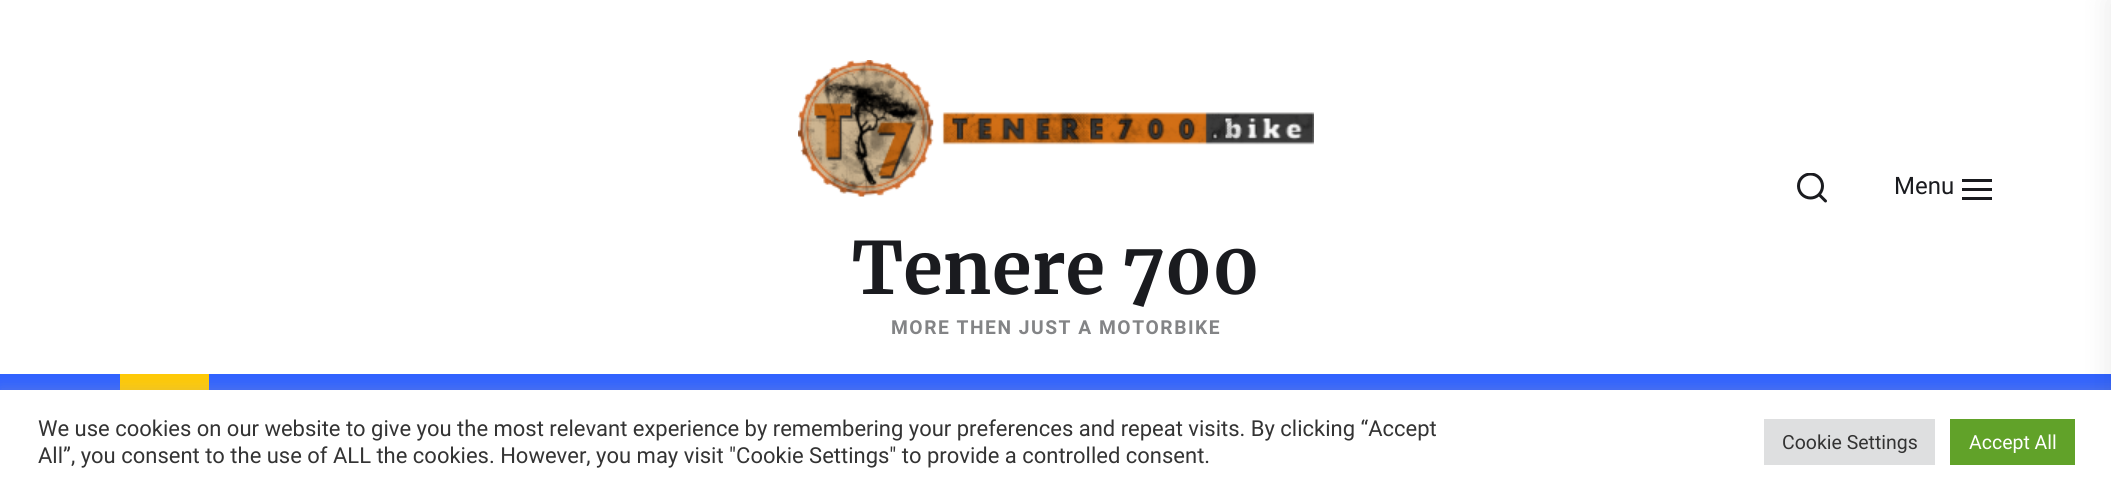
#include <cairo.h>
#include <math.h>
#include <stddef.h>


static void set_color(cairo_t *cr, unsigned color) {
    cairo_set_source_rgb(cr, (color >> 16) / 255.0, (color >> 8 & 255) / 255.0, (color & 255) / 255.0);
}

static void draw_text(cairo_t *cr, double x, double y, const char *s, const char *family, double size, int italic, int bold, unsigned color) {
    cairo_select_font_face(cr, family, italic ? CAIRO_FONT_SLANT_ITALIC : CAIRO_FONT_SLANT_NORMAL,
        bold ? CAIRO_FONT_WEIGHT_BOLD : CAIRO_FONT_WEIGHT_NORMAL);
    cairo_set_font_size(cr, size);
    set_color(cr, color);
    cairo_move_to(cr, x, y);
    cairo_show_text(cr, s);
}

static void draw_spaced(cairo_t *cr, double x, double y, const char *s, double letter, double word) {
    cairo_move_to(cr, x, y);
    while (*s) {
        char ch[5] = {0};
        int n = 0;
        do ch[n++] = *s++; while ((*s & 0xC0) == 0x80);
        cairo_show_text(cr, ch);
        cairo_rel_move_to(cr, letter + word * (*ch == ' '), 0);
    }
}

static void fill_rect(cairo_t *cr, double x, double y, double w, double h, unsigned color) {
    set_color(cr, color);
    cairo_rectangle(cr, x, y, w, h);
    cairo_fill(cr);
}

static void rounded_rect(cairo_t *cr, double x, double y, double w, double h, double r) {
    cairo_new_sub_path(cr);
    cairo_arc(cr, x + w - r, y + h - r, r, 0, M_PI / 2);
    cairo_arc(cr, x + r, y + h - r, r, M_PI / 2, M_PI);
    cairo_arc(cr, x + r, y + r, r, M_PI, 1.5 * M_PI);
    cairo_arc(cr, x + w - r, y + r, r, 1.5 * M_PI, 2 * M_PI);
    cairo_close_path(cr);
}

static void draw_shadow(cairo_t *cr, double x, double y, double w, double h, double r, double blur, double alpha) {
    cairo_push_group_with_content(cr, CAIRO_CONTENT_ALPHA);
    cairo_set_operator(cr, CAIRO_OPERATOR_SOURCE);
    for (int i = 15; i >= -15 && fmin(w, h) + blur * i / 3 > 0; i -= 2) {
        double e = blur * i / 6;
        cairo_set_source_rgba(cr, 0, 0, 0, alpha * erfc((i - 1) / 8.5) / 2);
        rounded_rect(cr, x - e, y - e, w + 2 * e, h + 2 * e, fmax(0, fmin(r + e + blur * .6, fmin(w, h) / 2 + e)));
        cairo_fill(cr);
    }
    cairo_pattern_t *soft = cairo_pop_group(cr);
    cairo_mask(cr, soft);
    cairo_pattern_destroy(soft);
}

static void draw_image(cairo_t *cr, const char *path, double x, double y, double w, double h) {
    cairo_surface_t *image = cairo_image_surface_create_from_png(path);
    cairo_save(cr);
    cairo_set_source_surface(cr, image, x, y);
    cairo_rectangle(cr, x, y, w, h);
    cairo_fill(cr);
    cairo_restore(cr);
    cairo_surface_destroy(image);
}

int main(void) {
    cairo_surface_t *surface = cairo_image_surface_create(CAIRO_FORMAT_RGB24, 2111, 493);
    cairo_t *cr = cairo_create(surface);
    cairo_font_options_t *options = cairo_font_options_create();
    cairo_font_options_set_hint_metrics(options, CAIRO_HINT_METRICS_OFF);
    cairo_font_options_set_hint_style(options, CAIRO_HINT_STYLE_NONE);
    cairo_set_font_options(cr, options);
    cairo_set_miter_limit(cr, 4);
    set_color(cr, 0xFFFFFF);
    cairo_paint(cr);
    draw_image(cr, "assets/img1.png", 1797, 173, 30, 30);
    draw_text(cr, 1894, 194, "Menu", "Roboto", 24, 0, 0, 0x1A1B1F);
    fill_rect(cr, 1962, 179, 30, 3, 0x1A1B1F);
    fill_rect(cr, 1962, 188, 30, 3, 0x1A1B1F);
    fill_rect(cr, 1962, 197, 30, 3, 0x1A1B1F);
    draw_image(cr, "assets/img2.png", 798, 60, 516, 137);
    draw_text(cr, 852, 294, "Tenere 700", "Merriweather", 72, 0, 1, 0x1A1B1F);
    cairo_select_font_face(cr, "Roboto", CAIRO_FONT_SLANT_NORMAL, CAIRO_FONT_WEIGHT_BOLD);
    cairo_set_font_size(cr, 19.25);
    set_color(cr, 0x838486);
    draw_spaced(cr, 891, 334, "MORE THEN JUST A MOTORBIKE", 1.5, 0);
    fill_rect(cr, 0, 374, 2111, 16, 0x3062FF);
    fill_rect(cr, 120, 374, 89, 16, 0xFFCA05);
    set_color(cr, 0x000000);
    draw_shadow(cr, 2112, 0, 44, 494, 0, 15, 0.1);
    set_color(cr, 0xACABAB);
    draw_shadow(cr, 0, 389, 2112, 103, 0, 7.5, 0.3);
    fill_rect(cr, 0, 390, 2111, 103, 0xFFFFFF);
    draw_text(cr, 38, 436, "We use cookies on our website to give you the most relevant experience by remembering your preferences and repeat visits. By clicking “Accept", "Roboto", 22, 0, 0, 0x333333);
    draw_text(cr, 38, 463, "All”, you consent to the use of ALL the cookies. However, you may visit \"Cookie Settings\" to provide a controlled consent.", "Roboto", 22, 0, 0, 0x333333);
    fill_rect(cr, 1764, 419, 171, 46, 0xDEDFE0);
    draw_text(cr, 1782, 449, "Cookie Settings", "Roboto", 19.5, 0, 0, 0x333333);
    fill_rect(cr, 1950, 419, 125, 46, 0x61A229);
    draw_text(cr, 1969, 449, "Accept All", "Roboto", 19.5, 0, 0, 0xFFFFFF);
    cairo_surface_write_to_png(surface, "output.png");
    cairo_font_options_destroy(options);
    cairo_destroy(cr);
    cairo_surface_destroy(surface);
    return 0;
}
